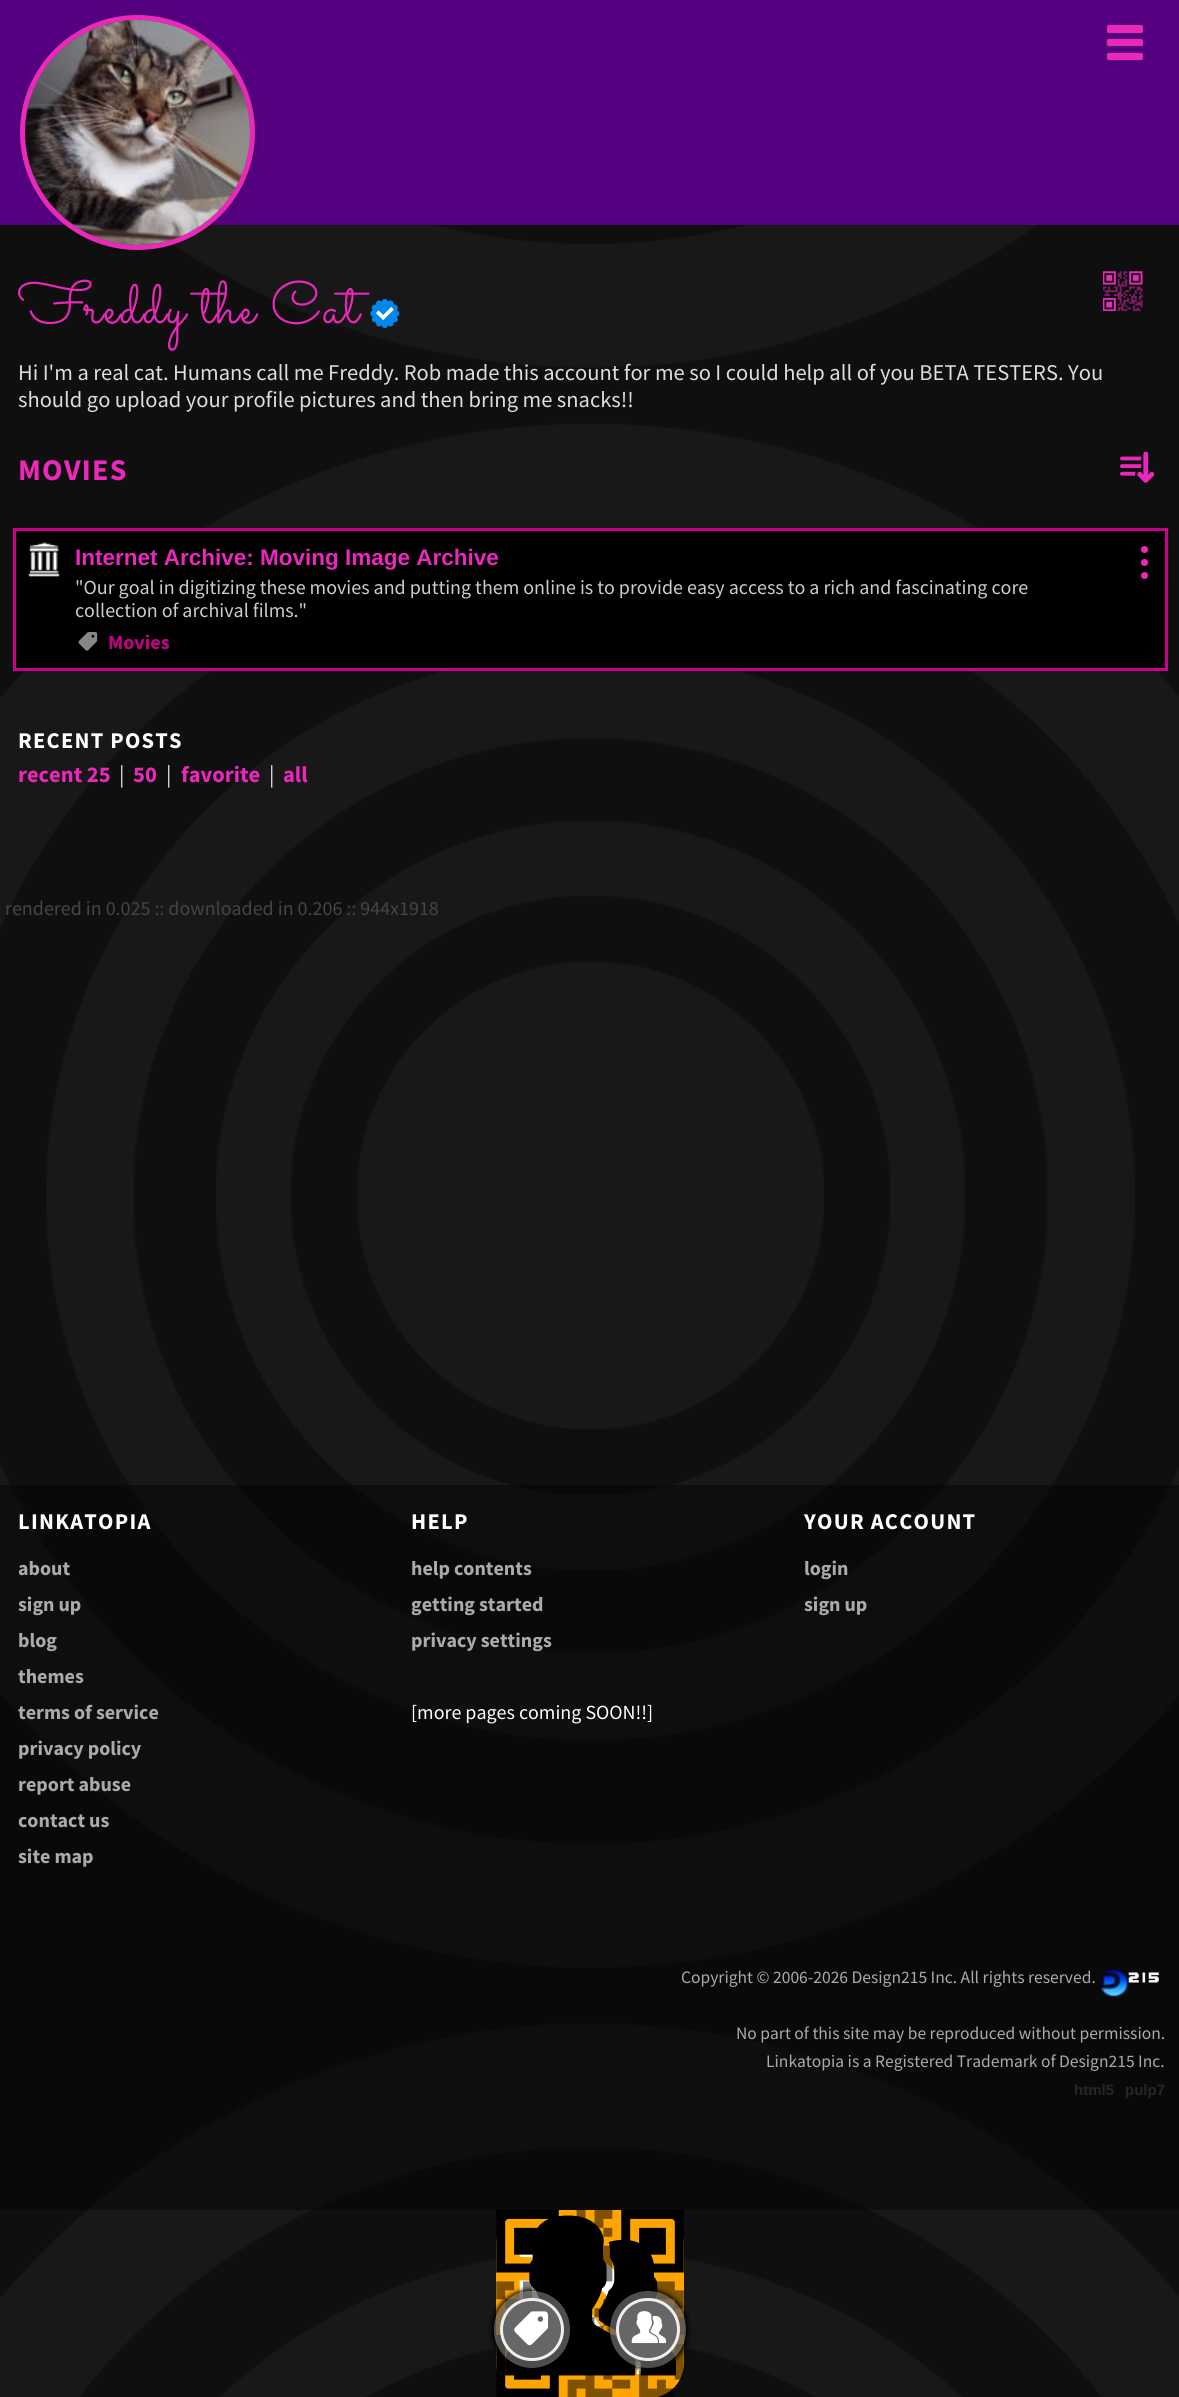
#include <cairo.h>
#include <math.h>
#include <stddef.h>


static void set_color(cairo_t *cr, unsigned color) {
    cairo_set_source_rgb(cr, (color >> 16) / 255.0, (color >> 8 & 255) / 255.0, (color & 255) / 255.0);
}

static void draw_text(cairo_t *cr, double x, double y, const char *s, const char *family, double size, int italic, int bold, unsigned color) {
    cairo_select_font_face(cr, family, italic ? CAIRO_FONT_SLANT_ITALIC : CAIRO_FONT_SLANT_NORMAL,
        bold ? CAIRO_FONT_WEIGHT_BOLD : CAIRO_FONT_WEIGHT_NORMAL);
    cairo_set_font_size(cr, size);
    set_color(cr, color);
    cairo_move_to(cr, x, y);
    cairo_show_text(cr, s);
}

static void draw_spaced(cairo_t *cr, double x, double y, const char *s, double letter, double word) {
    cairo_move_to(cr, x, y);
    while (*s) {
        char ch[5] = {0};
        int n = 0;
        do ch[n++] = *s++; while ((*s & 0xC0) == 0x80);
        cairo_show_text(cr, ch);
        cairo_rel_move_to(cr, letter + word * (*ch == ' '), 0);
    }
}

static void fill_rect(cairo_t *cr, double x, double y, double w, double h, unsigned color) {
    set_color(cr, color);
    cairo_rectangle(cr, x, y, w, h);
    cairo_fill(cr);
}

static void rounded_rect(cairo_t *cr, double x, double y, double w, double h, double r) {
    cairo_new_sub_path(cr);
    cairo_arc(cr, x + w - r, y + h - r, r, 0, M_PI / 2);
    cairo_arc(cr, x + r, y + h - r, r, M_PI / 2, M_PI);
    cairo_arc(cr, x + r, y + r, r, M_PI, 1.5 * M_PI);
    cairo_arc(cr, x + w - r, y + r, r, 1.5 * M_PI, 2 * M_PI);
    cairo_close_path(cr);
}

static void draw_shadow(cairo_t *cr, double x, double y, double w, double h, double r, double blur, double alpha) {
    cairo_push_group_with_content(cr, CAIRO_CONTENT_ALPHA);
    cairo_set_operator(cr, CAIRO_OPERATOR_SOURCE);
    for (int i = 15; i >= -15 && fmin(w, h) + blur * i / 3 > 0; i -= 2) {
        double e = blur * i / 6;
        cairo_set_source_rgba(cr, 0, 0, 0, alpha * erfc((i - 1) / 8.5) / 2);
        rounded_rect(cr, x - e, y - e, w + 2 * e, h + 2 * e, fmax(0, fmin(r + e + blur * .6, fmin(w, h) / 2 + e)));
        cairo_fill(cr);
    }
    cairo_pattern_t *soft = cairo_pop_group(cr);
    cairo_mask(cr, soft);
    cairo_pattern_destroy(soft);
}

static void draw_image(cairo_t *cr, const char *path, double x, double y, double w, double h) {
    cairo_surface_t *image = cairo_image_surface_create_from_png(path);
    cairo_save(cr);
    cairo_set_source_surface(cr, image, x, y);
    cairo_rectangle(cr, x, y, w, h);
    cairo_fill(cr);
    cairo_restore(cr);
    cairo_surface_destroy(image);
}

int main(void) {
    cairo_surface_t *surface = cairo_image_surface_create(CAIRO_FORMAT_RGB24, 1179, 2397);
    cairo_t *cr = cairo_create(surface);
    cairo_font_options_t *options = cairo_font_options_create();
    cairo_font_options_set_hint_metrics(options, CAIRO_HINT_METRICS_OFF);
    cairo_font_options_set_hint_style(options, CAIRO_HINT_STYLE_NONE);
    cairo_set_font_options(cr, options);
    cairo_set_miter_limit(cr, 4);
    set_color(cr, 0xFFFFFF);
    cairo_paint(cr);
    draw_image(cr, "assets/img1.png", 0, 225, 1179, 2172);
    fill_rect(cr, 0, 0, 1179, 225, 0x550080);
    set_color(cr, 0x000000);
    draw_shadow(cr, 21, 16, 235, 235, 117.5, 3, 0.2);
    set_color(cr, 0x555555);
    cairo_arc(cr, 137.5, 132.5, 115, 0, 2 * M_PI);
    cairo_fill_preserve(cr);
    set_color(cr, 0xEB27BC);
    cairo_set_line_width(cr, 5);
    cairo_stroke(cr);
    draw_image(cr, "assets/img2.png", 25, 20, 225, 225);
    set_color(cr, 0x551177);
    rounded_rect(cr, 1105, 24, 39, 10, 3);
    cairo_fill(cr);
    set_color(cr, 0xEB27BC);
    rounded_rect(cr, 1107, 25, 36, 8, 2);
    cairo_fill(cr);
    set_color(cr, 0x551177);
    rounded_rect(cr, 1105, 37, 39, 11, 3);
    cairo_fill(cr);
    set_color(cr, 0xEB27BC);
    rounded_rect(cr, 1107, 39, 36, 7, 2);
    cairo_fill(cr);
    set_color(cr, 0x551177);
    rounded_rect(cr, 1105, 51, 39, 10, 3);
    cairo_fill(cr);
    set_color(cr, 0xEB27BC);
    rounded_rect(cr, 1107, 53, 36, 7, 2);
    cairo_fill(cr);
    cairo_select_font_face(cr, "Sacramento", CAIRO_FONT_SLANT_NORMAL, CAIRO_FONT_WEIGHT_NORMAL);
    cairo_set_font_size(cr, 60);
    draw_spaced(cr, 18, 323, "Freddy the Cat", 1.25, 0);
    draw_image(cr, "assets/img3.png", 370, 299, 30, 30);
    draw_image(cr, "assets/img4.png", 1103, 271, 40, 40);
    draw_text(cr, 18, 380, "Hi I'm a real cat. Humans call me Freddy. Rob made this account for me so I could help all of you BETA TESTERS. You", "Source Sans Pro", 22.5, 0, 0, 0xDDDDDD);
    draw_text(cr, 18, 407, "should go upload your profile pictures and then bring me snacks!!", "Source Sans Pro", 22.5, 0, 0, 0xDDDDDD);
    cairo_select_font_face(cr, "Source Sans Pro", CAIRO_FONT_SLANT_NORMAL, CAIRO_FONT_WEIGHT_BOLD);
    cairo_set_font_size(cr, 30);
    set_color(cr, 0xEB27BC);
    draw_spaced(cr, 18, 480, "MOVIES", 1.25, 0);
    draw_image(cr, "assets/img5.png", 1120, 451, 35, 32);
    set_color(cr, 0x000000);
    cairo_rectangle(cr, 14.5, 529.5, 1152, 140);
    cairo_fill_preserve(cr);
    set_color(cr, 0xCC008E);
    cairo_set_line_width(cr, 3);
    cairo_stroke(cr);
    draw_image(cr, "assets/img6.png", 28, 540, 33, 37);
    draw_text(cr, 75, 565, "Internet Archive: Moving Image Archive", "Liberation Sans", 22.5, 0, 1, 0xEB27BC);
    cairo_new_path(cr);
    cairo_arc(cr, 1144.5, 549.5, 3.5, 0, 2 * M_PI);
    cairo_fill(cr);
    cairo_arc(cr, 1144.5, 562.5, 3.5, 0, 2 * M_PI);
    cairo_fill(cr);
    cairo_arc(cr, 1144.5, 575.5, 3.5, 0, 2 * M_PI);
    cairo_fill(cr);
    draw_text(cr, 75, 594, "\"Our goal in digitizing these movies and putting them online is to provide easy access to a rich and fascinating core", "Source Sans Pro", 20, 0, 0, 0xCCCCCC);
    draw_text(cr, 75, 617, "collection of archival films.\"", "Source Sans Pro", 20, 0, 0, 0xCCCCCC);
    draw_image(cr, "assets/img7.png", 78, 632, 20, 19);
    draw_text(cr, 108, 649, "Movies", "Source Sans Pro", 20, 0, 1, 0xC10087);
    cairo_set_font_size(cr, 22.5);
    set_color(cr, 0xFFFFFF);
    draw_spaced(cr, 18, 748, "RECENT POSTS", 1.25, 0);
    draw_text(cr, 18, 782, "recent 25", "Source Sans Pro", 22.5, 0, 1, 0xEB27BC);
    draw_text(cr, 119, 782, "|", "Source Sans Pro", 22.5, 0, 0, 0xDDDDDD);
    draw_text(cr, 133, 782, "50", "Source Sans Pro", 22.5, 0, 1, 0xEB27BC);
    draw_text(cr, 166, 782, "|", "Source Sans Pro", 22.5, 0, 0, 0xDDDDDD);
    draw_text(cr, 181, 782, "favorite", "Source Sans Pro", 22.5, 0, 1, 0xEB27BC);
    draw_text(cr, 269, 782, "|", "Source Sans Pro", 22.5, 0, 0, 0xDDDDDD);
    draw_text(cr, 283, 782, "all", "Source Sans Pro", 22.5, 0, 1, 0xEB27BC);
    draw_text(cr, 5, 915, "rendered in 0.025 :: downloaded in 0.206 :: 944x1918", "Source Sans Pro", 20, 0, 0, 0x444444);
    draw_image(cr, "assets/img11.png", 496, 2210, 188, 187);
    cairo_save(cr);
    cairo_set_fill_rule(cr, CAIRO_FILL_RULE_EVEN_ODD);
    cairo_new_path(cr);
    cairo_move_to(cr, 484, 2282);
    cairo_line_to(cr, 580, 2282);
    cairo_line_to(cr, 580, 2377);
    cairo_line_to(cr, 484, 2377);
    cairo_close_path(cr);
    cairo_move_to(cr, 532, 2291);
    cairo_curve_to(cr, 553, 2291, 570, 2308, 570, 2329);
    cairo_line_to(cr, 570, 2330);
    cairo_curve_to(cr, 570, 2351, 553, 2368, 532, 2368);
    cairo_curve_to(cr, 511, 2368, 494, 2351, 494, 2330);
    cairo_line_to(cr, 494, 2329);
    cairo_curve_to(cr, 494, 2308, 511, 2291, 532, 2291);
    cairo_close_path(cr);
    cairo_clip(cr);
    set_color(cr, 0x000000);
    draw_shadow(cr, 491, 2289, 82, 81, 40.5, 2, 0.8);
    cairo_restore(cr);
    cairo_set_source_rgba(cr, 0.376, 0.376, 0.376, 0.8);
    rounded_rect(cr, 494, 2291, 76, 77, 38);
    cairo_fill(cr);
    set_color(cr, 0x666666);
    rounded_rect(cr, 501.5, 2299.5, 61, 60, 30);
    cairo_fill_preserve(cr);
    set_color(cr, 0xEEEEEE);
    cairo_stroke(cr);
    draw_image(cr, "assets/img8.png", 514, 2311, 35, 35);
    cairo_save(cr);
    cairo_set_fill_rule(cr, CAIRO_FILL_RULE_EVEN_ODD);
    cairo_new_path(cr);
    cairo_move_to(cr, 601, 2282);
    cairo_line_to(cr, 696, 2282);
    cairo_line_to(cr, 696, 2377);
    cairo_line_to(cr, 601, 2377);
    cairo_close_path(cr);
    cairo_move_to(cr, 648, 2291);
    cairo_curve_to(cr, 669, 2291, 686, 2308, 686, 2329);
    cairo_line_to(cr, 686, 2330);
    cairo_curve_to(cr, 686, 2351, 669, 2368, 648, 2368);
    cairo_curve_to(cr, 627, 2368, 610, 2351, 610, 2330);
    cairo_line_to(cr, 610, 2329);
    cairo_curve_to(cr, 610, 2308, 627, 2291, 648, 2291);
    cairo_close_path(cr);
    cairo_clip(cr);
    set_color(cr, 0x000000);
    draw_shadow(cr, 608, 2289, 81, 81, 40.5, 2, 0.8);
    cairo_restore(cr);
    cairo_set_source_rgba(cr, 0.376, 0.376, 0.376, 0.8);
    rounded_rect(cr, 610, 2291, 76, 77, 38);
    cairo_fill(cr);
    set_color(cr, 0x666666);
    rounded_rect(cr, 617.5, 2299.5, 61, 60, 30);
    cairo_fill_preserve(cr);
    set_color(cr, 0xEEEEEE);
    cairo_stroke(cr);
    draw_image(cr, "assets/img9.png", 631, 2311, 35, 33);
    cairo_set_source_rgba(cr, 0, 0, 0, 0.4);
    cairo_rectangle(cr, 0, 1485, 1179, 725);
    cairo_fill(cr);
    cairo_select_font_face(cr, "Source Sans Pro", CAIRO_FONT_SLANT_NORMAL, CAIRO_FONT_WEIGHT_BOLD);
    cairo_set_font_size(cr, 22.5);
    set_color(cr, 0xFFFFFF);
    draw_spaced(cr, 18, 1529, "LINKATOPIA", 1.25, 0);
    draw_text(cr, 18, 1575, "about", "Source Sans Pro", 20, 0, 1, 0xAAAAAA);
    draw_text(cr, 18, 1611, "sign up", "Source Sans Pro", 20, 0, 1, 0xAAAAAA);
    draw_text(cr, 18, 1647, "blog", "Source Sans Pro", 20, 0, 1, 0xAAAAAA);
    draw_text(cr, 18, 1683, "themes", "Source Sans Pro", 20, 0, 1, 0xAAAAAA);
    draw_text(cr, 18, 1719, "terms of service", "Source Sans Pro", 20, 0, 1, 0xAAAAAA);
    draw_text(cr, 18, 1755, "privacy policy", "Source Sans Pro", 20, 0, 1, 0xAAAAAA);
    draw_text(cr, 18, 1791, "report abuse", "Source Sans Pro", 20, 0, 1, 0xAAAAAA);
    draw_text(cr, 18, 1827, "contact us", "Source Sans Pro", 20, 0, 1, 0xAAAAAA);
    draw_text(cr, 18, 1863, "site map", "Source Sans Pro", 20, 0, 1, 0xAAAAAA);
    cairo_set_font_size(cr, 22.5);
    set_color(cr, 0xFFFFFF);
    draw_spaced(cr, 411, 1529, "HELP", 1.25, 0);
    draw_text(cr, 411, 1575, "help contents", "Source Sans Pro", 20, 0, 1, 0xAAAAAA);
    draw_text(cr, 411, 1611, "getting started", "Source Sans Pro", 20, 0, 1, 0xAAAAAA);
    draw_text(cr, 411, 1647, "privacy settings", "Source Sans Pro", 20, 0, 1, 0xAAAAAA);
    draw_text(cr, 411, 1719, "[more pages coming SOON!!]", "Source Sans Pro", 20, 0, 0, 0xFFFFFF);
    cairo_select_font_face(cr, "Source Sans Pro", CAIRO_FONT_SLANT_NORMAL, CAIRO_FONT_WEIGHT_BOLD);
    cairo_set_font_size(cr, 22.5);
    draw_spaced(cr, 804, 1529, "YOUR ACCOUNT", 1.25, 0);
    draw_text(cr, 804, 1575, "login", "Source Sans Pro", 20, 0, 1, 0xAAAAAA);
    draw_text(cr, 804, 1611, "sign up", "Source Sans Pro", 20, 0, 1, 0xAAAAAA);
    draw_text(cr, 681, 1983, "Copyright © 2006-2026 Design215 Inc. All rights reserved.", "Source Sans Pro", 17.5, 0, 0, 0xAAAAAA);
    draw_image(cr, "assets/img10.png", 1101, 1969, 58, 28);
    draw_text(cr, 736, 2039, "No part of this site may be reproduced without permission.", "Source Sans Pro", 17.5, 0, 0, 0xAAAAAA);
    draw_text(cr, 766, 2067, "Linkatopia is a Registered Trademark of Design215 Inc.", "Source Sans Pro", 17.5, 0, 0, 0xAAAAAA);
    draw_text(cr, 1074, 2095, "html5", "Liberation Sans", 15, 0, 1, 0x262626);
    draw_text(cr, 1125, 2095, "pulp7", "Liberation Sans", 15, 0, 1, 0x262626);
    cairo_surface_write_to_png(surface, "output.png");
    cairo_font_options_destroy(options);
    cairo_destroy(cr);
    cairo_surface_destroy(surface);
    return 0;
}
